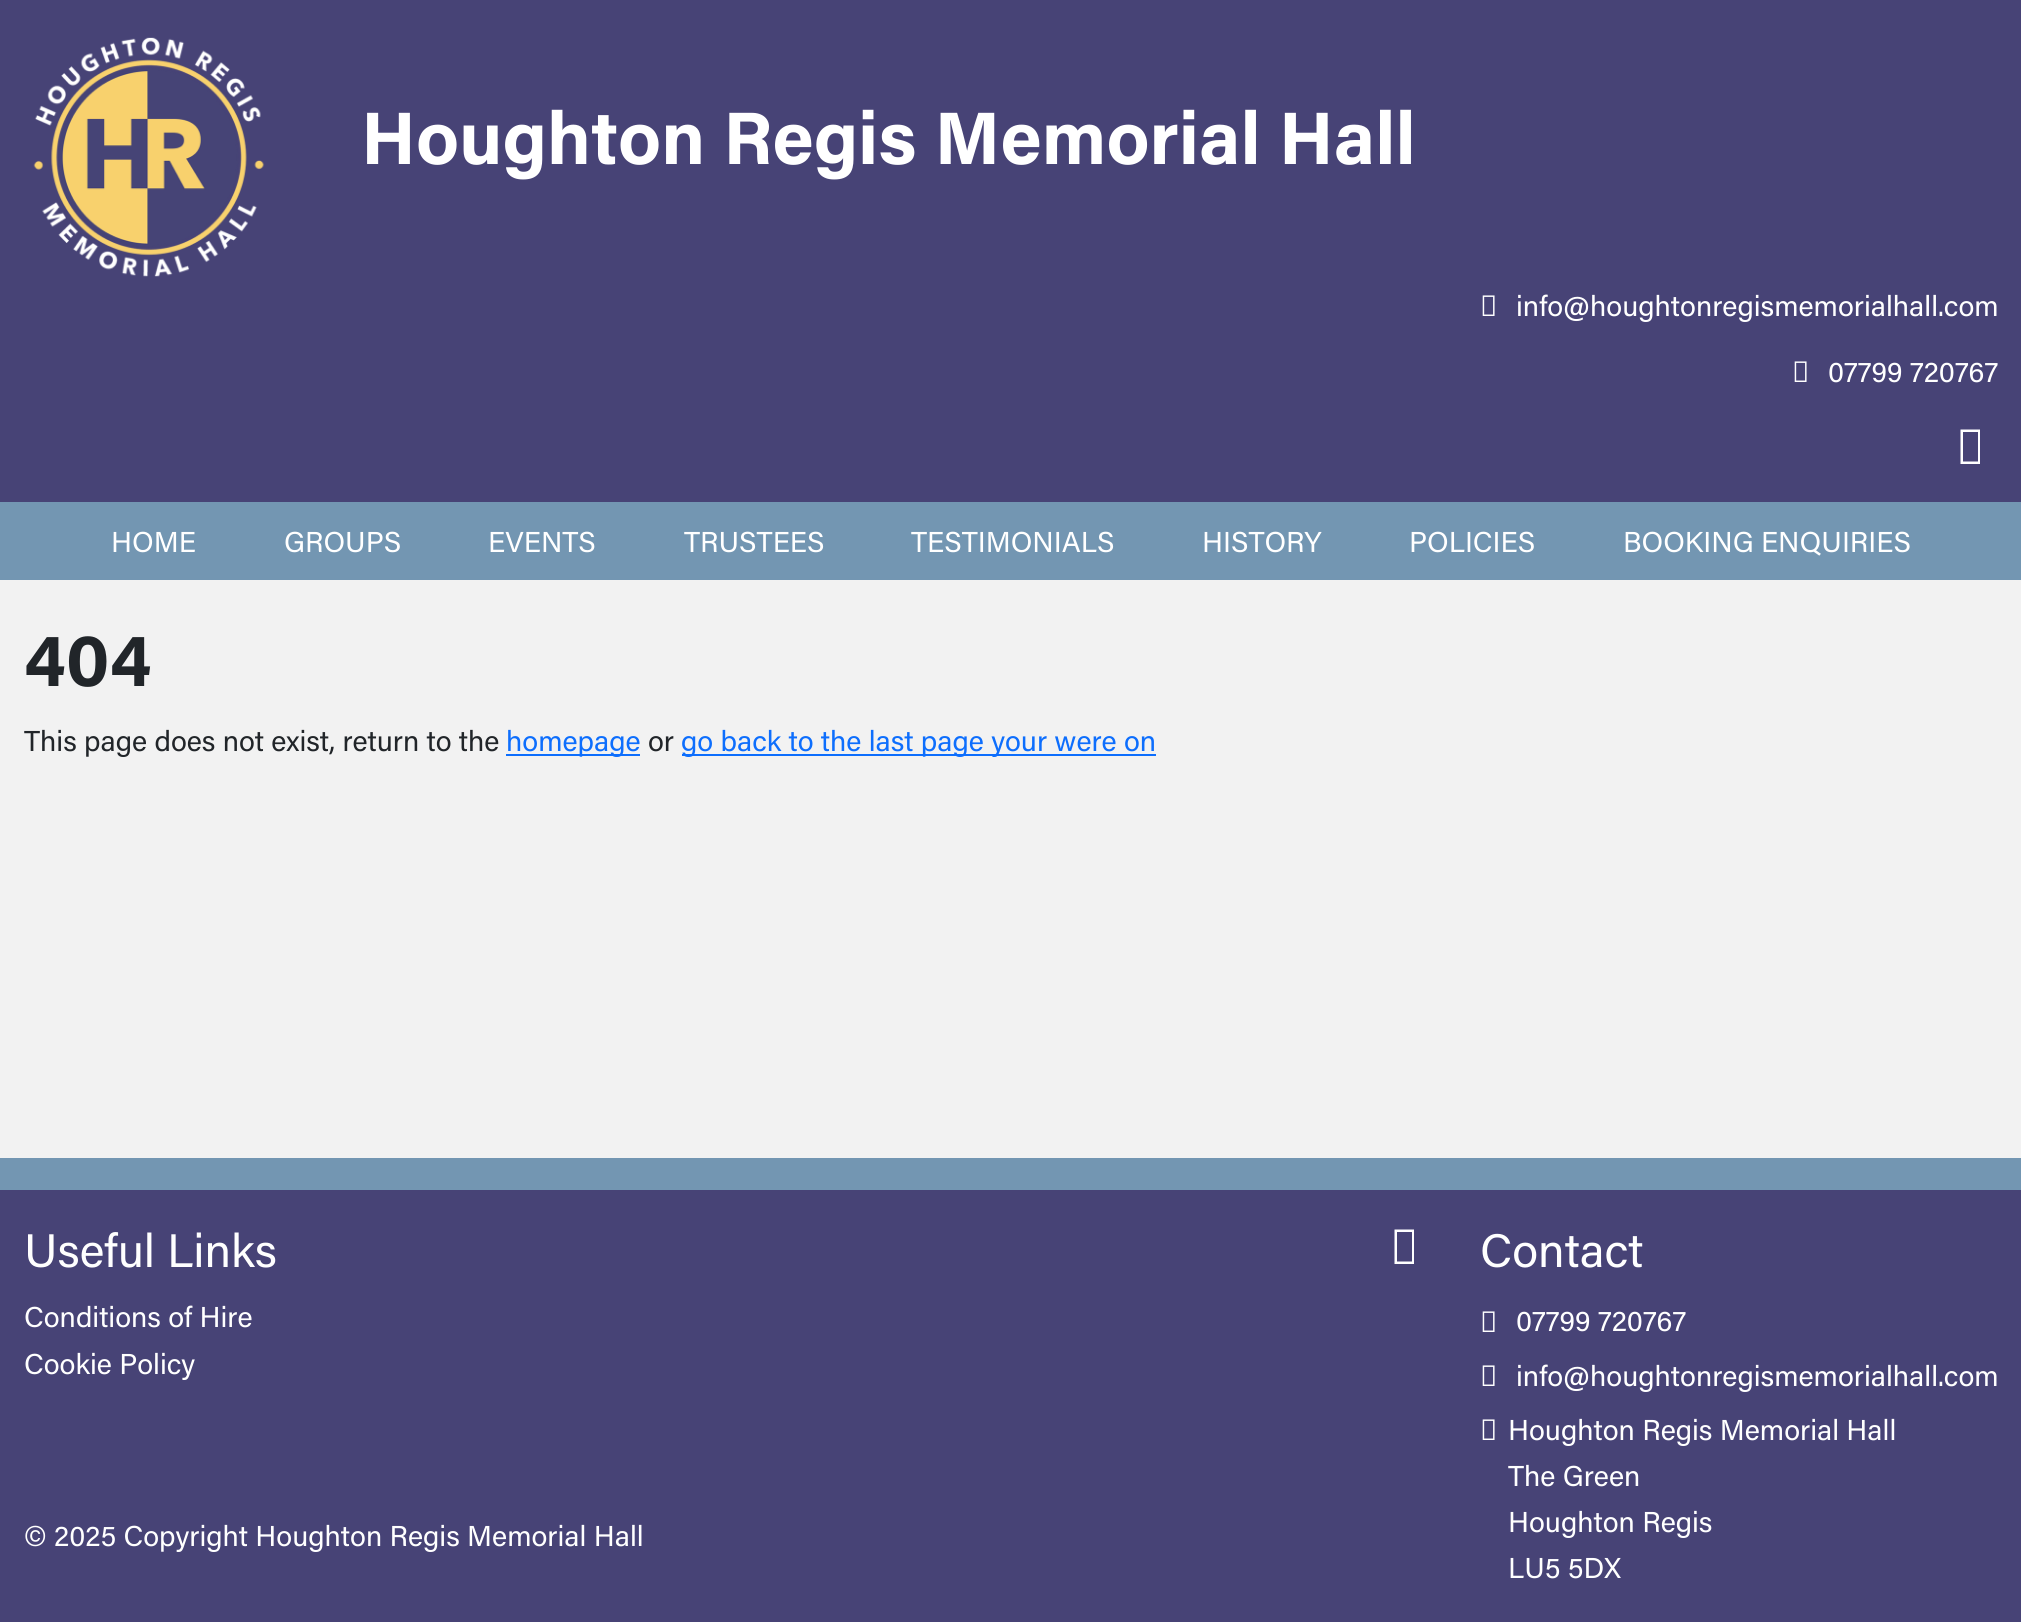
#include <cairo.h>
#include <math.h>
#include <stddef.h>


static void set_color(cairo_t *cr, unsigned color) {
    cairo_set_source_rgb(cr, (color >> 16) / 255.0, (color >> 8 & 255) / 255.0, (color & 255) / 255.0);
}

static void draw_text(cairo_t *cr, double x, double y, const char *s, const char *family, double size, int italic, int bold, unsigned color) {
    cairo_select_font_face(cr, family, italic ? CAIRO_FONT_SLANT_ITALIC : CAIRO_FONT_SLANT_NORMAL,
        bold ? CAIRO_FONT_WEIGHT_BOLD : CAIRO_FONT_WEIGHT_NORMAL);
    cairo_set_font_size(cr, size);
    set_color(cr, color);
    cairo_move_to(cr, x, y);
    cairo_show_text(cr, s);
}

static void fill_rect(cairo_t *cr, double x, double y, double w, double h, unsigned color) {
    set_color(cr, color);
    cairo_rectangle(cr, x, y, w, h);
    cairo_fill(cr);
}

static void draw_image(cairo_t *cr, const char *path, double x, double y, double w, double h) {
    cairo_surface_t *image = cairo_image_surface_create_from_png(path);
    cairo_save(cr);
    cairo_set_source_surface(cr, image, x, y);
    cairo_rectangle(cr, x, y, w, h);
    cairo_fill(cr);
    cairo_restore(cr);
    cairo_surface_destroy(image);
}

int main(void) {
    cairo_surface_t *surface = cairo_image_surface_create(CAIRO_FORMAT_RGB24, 2021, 1622);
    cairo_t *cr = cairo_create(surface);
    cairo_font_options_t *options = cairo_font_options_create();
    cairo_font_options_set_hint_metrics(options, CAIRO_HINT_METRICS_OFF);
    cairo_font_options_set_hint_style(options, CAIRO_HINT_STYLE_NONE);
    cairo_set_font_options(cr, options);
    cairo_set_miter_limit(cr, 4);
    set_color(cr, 0xF2F2F2);
    cairo_paint(cr);
    fill_rect(cr, 0, 0, 2021, 502, 0x474376);
    draw_image(cr, "assets/img1.png", 33, 37, 232, 240);
    draw_text(cr, 361, 164, "Houghton Regis Memorial Hall", "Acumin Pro", 74.3, 0, 1, 0xFFFFFF);
    draw_image(cr, "assets/img2.png", 1482, 295, 13, 21);
    draw_text(cr, 1516, 316, "info@houghtonregismemorialhall.com", "Acumin Pro", 28.8, 0, 0, 0xFFFFFF);
    draw_image(cr, "assets/img2.png", 1794, 361, 13, 21);
    draw_text(cr, 1828, 382, "07799 720767", "Acumin Pro", 28.8, 0, 0, 0xFFFFFF);
    cairo_new_path(cr);
    cairo_move_to(cr, 1960.5, 464);
    cairo_line_to(cr, 1960.5, 429.5);
    cairo_line_to(cr, 1980, 429.5);
    cairo_line_to(cr, 1980, 464);
    cairo_close_path(cr);
    cairo_move_to(cr, 1963, 461.5);
    cairo_line_to(cr, 1978, 461.5);
    cairo_line_to(cr, 1978, 432);
    cairo_line_to(cr, 1963, 432);
    cairo_close_path(cr);
    cairo_fill(cr);
    fill_rect(cr, 0, 502, 2021, 78, 0x7396B2);
    draw_text(cr, 111, 552, "HOME", "Acumin Pro", 28.8, 0, 0, 0xFFFFFF);
    draw_text(cr, 284, 552, "GROUPS", "Acumin Pro", 28.8, 0, 0, 0xFFFFFF);
    draw_text(cr, 488, 552, "EVENTS", "Acumin Pro", 28.8, 0, 0, 0xFFFFFF);
    draw_text(cr, 684, 552, "TRUSTEES", "Acumin Pro", 28.8, 0, 0, 0xFFFFFF);
    draw_text(cr, 911, 552, "TESTIMONIALS", "Acumin Pro", 28.8, 0, 0, 0xFFFFFF);
    draw_text(cr, 1202, 552, "HISTORY", "Acumin Pro", 28.8, 0, 0, 0xFFFFFF);
    draw_text(cr, 1409, 552, "POLICIES", "Acumin Pro", 28.8, 0, 0, 0xFFFFFF);
    draw_text(cr, 1623, 552, "BOOKING ENQUIRIES", "Acumin Pro", 28.8, 0, 0, 0xFFFFFF);
    draw_text(cr, 24, 686, "404", "Acumin Pro", 74.3, 0, 1, 0x212529);
    draw_text(cr, 24, 751, "This page does not exist, return to the", "Acumin Pro", 28.8, 0, 0, 0x212529);
    fill_rect(cr, 506, 754, 134, 2, 0x0D6EFD);
    draw_text(cr, 506, 751, "homepage", "Acumin Pro", 28.8, 0, 0, 0x0D6EFD);
    draw_text(cr, 648, 751, "or", "Acumin Pro", 28.8, 0, 0, 0x212529);
    fill_rect(cr, 682, 754, 474, 2, 0x0D6EFD);
    draw_text(cr, 681, 751, "go back to the last page your were on", "Acumin Pro", 28.8, 0, 0, 0x0D6EFD);
    fill_rect(cr, 0, 1190, 2021, 432, 0x474376);
    fill_rect(cr, 0, 1158, 2021, 32, 0x7396B2);
    draw_text(cr, 24, 1267, "Useful Links", "Acumin Pro", 47, 0, 0, 0xFFFFFF);
    draw_text(cr, 24, 1327, "Conditions of Hire", "Acumin Pro", 28.8, 0, 0, 0xFFFFFF);
    draw_text(cr, 24, 1374, "Cookie Policy", "Acumin Pro", 28.8, 0, 0, 0xFFFFFF);
    draw_text(cr, 24, 1546, "© 2025 Copyright Houghton Regis Memorial Hall", "Acumin Pro", 28.8, 0, 0, 0xFFFFFF);
    cairo_new_path(cr);
    cairo_move_to(cr, 1394.5, 1264);
    cairo_line_to(cr, 1394.5, 1229.5);
    cairo_line_to(cr, 1414, 1229.5);
    cairo_line_to(cr, 1414, 1264);
    cairo_close_path(cr);
    cairo_move_to(cr, 1397, 1261.5);
    cairo_line_to(cr, 1412, 1261.5);
    cairo_line_to(cr, 1412, 1232);
    cairo_line_to(cr, 1397, 1232);
    cairo_close_path(cr);
    cairo_fill(cr);
    draw_text(cr, 1480, 1267, "Contact", "Acumin Pro", 47, 0, 0, 0xFFFFFF);
    draw_image(cr, "assets/img2.png", 1482, 1311, 13, 21);
    draw_text(cr, 1516, 1331, "07799 720767", "Acumin Pro", 28.8, 0, 0, 0xFFFFFF);
    draw_image(cr, "assets/img2.png", 1482, 1365, 13, 21);
    draw_text(cr, 1516, 1386, "info@houghtonregismemorialhall.com", "Acumin Pro", 28.8, 0, 0, 0xFFFFFF);
    draw_image(cr, "assets/img2.png", 1482, 1419, 13, 21);
    draw_text(cr, 1508, 1440, "Houghton Regis Memorial Hall", "Acumin Pro", 28.8, 0, 0, 0xFFFFFF);
    draw_text(cr, 1508, 1486, "The Green", "Acumin Pro", 28.8, 0, 0, 0xFFFFFF);
    draw_text(cr, 1508, 1532, "Houghton Regis", "Acumin Pro", 28.8, 0, 0, 0xFFFFFF);
    draw_text(cr, 1508, 1578, "LU5 5DX", "Acumin Pro", 28.8, 0, 0, 0xFFFFFF);
    cairo_surface_write_to_png(surface, "output.png");
    cairo_font_options_destroy(options);
    cairo_destroy(cr);
    cairo_surface_destroy(surface);
    return 0;
}
